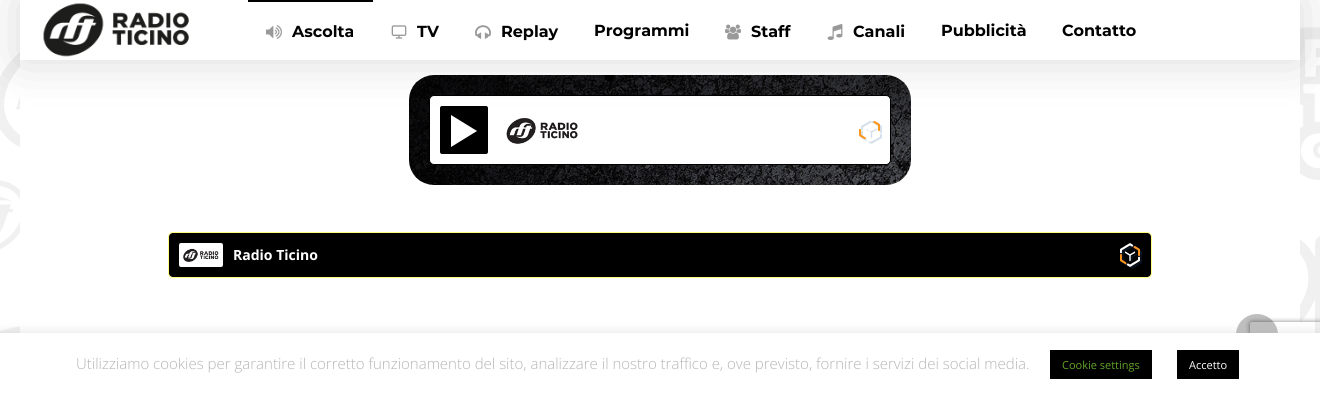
#include <cairo.h>
#include <math.h>
#include <stddef.h>


static void set_color(cairo_t *cr, unsigned color) {
    cairo_set_source_rgb(cr, (color >> 16) / 255.0, (color >> 8 & 255) / 255.0, (color & 255) / 255.0);
}

static void draw_text(cairo_t *cr, double x, double y, const char *s, const char *family, double size, int italic, int bold, unsigned color) {
    cairo_select_font_face(cr, family, italic ? CAIRO_FONT_SLANT_ITALIC : CAIRO_FONT_SLANT_NORMAL,
        bold ? CAIRO_FONT_WEIGHT_BOLD : CAIRO_FONT_WEIGHT_NORMAL);
    cairo_set_font_size(cr, size);
    set_color(cr, color);
    cairo_move_to(cr, x, y);
    cairo_show_text(cr, s);
}

static void fill_rect(cairo_t *cr, double x, double y, double w, double h, unsigned color) {
    set_color(cr, color);
    cairo_rectangle(cr, x, y, w, h);
    cairo_fill(cr);
}

static void rounded_rect(cairo_t *cr, double x, double y, double w, double h, double r) {
    cairo_new_sub_path(cr);
    cairo_arc(cr, x + w - r, y + h - r, r, 0, M_PI / 2);
    cairo_arc(cr, x + r, y + h - r, r, M_PI / 2, M_PI);
    cairo_arc(cr, x + r, y + r, r, M_PI, 1.5 * M_PI);
    cairo_arc(cr, x + w - r, y + r, r, 1.5 * M_PI, 2 * M_PI);
    cairo_close_path(cr);
}

static void draw_shadow(cairo_t *cr, double x, double y, double w, double h, double r, double blur, double alpha) {
    cairo_push_group_with_content(cr, CAIRO_CONTENT_ALPHA);
    cairo_set_operator(cr, CAIRO_OPERATOR_SOURCE);
    for (int i = 15; i >= -15 && fmin(w, h) + blur * i / 3 > 0; i -= 2) {
        double e = blur * i / 6;
        cairo_set_source_rgba(cr, 0, 0, 0, alpha * erfc((i - 1) / 8.5) / 2);
        rounded_rect(cr, x - e, y - e, w + 2 * e, h + 2 * e, fmax(0, fmin(r + e + blur * .6, fmin(w, h) / 2 + e)));
        cairo_fill(cr);
    }
    cairo_pattern_t *soft = cairo_pop_group(cr);
    cairo_mask(cr, soft);
    cairo_pattern_destroy(soft);
}

static void draw_image(cairo_t *cr, const char *path, double x, double y, double w, double h) {
    cairo_surface_t *image = cairo_image_surface_create_from_png(path);
    cairo_save(cr);
    cairo_set_source_surface(cr, image, x, y);
    cairo_rectangle(cr, x, y, w, h);
    cairo_fill(cr);
    cairo_restore(cr);
    cairo_surface_destroy(image);
}

int main(void) {
    cairo_surface_t *surface = cairo_image_surface_create(CAIRO_FORMAT_RGB24, 1320, 396);
    cairo_t *cr = cairo_create(surface);
    cairo_font_options_t *options = cairo_font_options_create();
    cairo_font_options_set_hint_metrics(options, CAIRO_HINT_METRICS_OFF);
    cairo_font_options_set_hint_style(options, CAIRO_HINT_STYLE_NONE);
    cairo_set_font_options(cr, options);
    cairo_set_miter_limit(cr, 4);
    set_color(cr, 0xFFFFFF);
    cairo_paint(cr);
    draw_image(cr, "assets/img1.png", 0, 0, 1320, 333);
    fill_rect(cr, 20, 60, 1280, 273, 0xFFFFFF);
    set_color(cr, 0xF2F2F2);
    rounded_rect(cr, 409, 75, 502, 110, 25);
    cairo_fill(cr);
    draw_image(cr, "assets/img8.png", 409, 75, 502, 110);
    set_color(cr, 0xFFFFFF);
    rounded_rect(cr, 429.5, 95.5, 461, 69, 4.5);
    cairo_fill_preserve(cr);
    set_color(cr, 0x000000);
    cairo_set_line_width(cr, 1);
    cairo_stroke(cr);
    rounded_rect(cr, 440, 106, 48, 48, 2);
    cairo_fill(cr);
    set_color(cr, 0xFFFFFF);
    cairo_new_path(cr);
    cairo_move_to(cr, 451, 147);
    cairo_line_to(cr, 451, 115);
    cairo_line_to(cr, 477, 131);
    cairo_close_path(cr);
    cairo_fill(cr);
    draw_image(cr, "assets/img9.png", 506, 118, 72, 26);
    rounded_rect(cr, 168.5, 232.5, 983, 45, 4.5);
    set_color(cr, 0xFFFF80);
    cairo_stroke(cr);
    set_color(cr, 0x000000);
    rounded_rect(cr, 169, 233, 982, 44, 4);
    cairo_fill(cr);
    cairo_save(cr);
    rounded_rect(cr, 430, 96, 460, 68, 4);
    cairo_clip(cr);
    cairo_set_fill_rule(cr, CAIRO_FILL_RULE_EVEN_ODD);
    cairo_new_path(cr);
    cairo_move_to(cr, 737, 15);
    cairo_line_to(cr, 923, 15);
    cairo_line_to(cr, 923, 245);
    cairo_line_to(cr, 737, 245);
    cairo_close_path(cr);
    cairo_move_to(cr, 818, 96);
    cairo_line_to(cr, 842, 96);
    cairo_line_to(cr, 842, 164);
    cairo_line_to(cr, 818, 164);
    cairo_close_path(cr);
    cairo_clip(cr);
    set_color(cr, 0xFFFFFF);
    draw_shadow(cr, 786, 64, 88, 132, 0, 16, 1);
    cairo_restore(cr);
    draw_image(cr, "assets/img10.png", 859, 120, 23, 24);
    set_color(cr, 0x000000);
    draw_shadow(cr, 20, 0, 1280, 60, 0, 25, 0.15);
    fill_rect(cr, 20, 0, 1280, 60, 0xFFFFFF);
    draw_image(cr, "assets/img2.png", 43, 3, 146, 54);
    fill_rect(cr, 248, 0, 125, 2, 0x000000);
    draw_image(cr, "assets/img3.png", 266, 25, 16, 14);
    draw_text(cr, 292, 37, "Ascolta", "Montserrat", 16, 0, 1, 0x000000);
    draw_image(cr, "assets/img4.png", 391, 25, 16, 14);
    draw_text(cr, 417, 37, "TV", "Montserrat", 16, 0, 1, 0x000000);
    draw_image(cr, "assets/img5.png", 475, 25, 16, 14);
    draw_text(cr, 501, 37, "Replay", "Montserrat", 16, 0, 1, 0x000000);
    draw_text(cr, 594, 36, "Programmi", "Montserrat", 16, 0, 1, 0x000000);
    draw_image(cr, "assets/img6.png", 725, 24, 16, 16);
    draw_text(cr, 751, 37, "Staff", "Montserrat", 16, 0, 1, 0x000000);
    draw_image(cr, "assets/img7.png", 827, 24, 16, 16);
    draw_text(cr, 853, 37, "Canali", "Montserrat", 16, 0, 1, 0x000000);
    draw_text(cr, 941, 36, "Pubblicità", "Montserrat", 16, 0, 1, 0x000000);
    draw_text(cr, 1062, 36, "Contatto", "Montserrat", 16, 0, 1, 0x000000);
    draw_image(cr, "assets/img11.png", 179, 243, 44, 24);
    draw_text(cr, 233, 260, "Radio Ticino", "Open Sans", 14, 0, 1, 0xFFFFFF);
    draw_image(cr, "assets/img12.png", 1120, 243, 22, 26);
    cairo_save(cr);
    cairo_set_fill_rule(cr, CAIRO_FILL_RULE_EVEN_ODD);
    cairo_new_path(cr);
    cairo_move_to(cr, 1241, 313);
    cairo_line_to(cr, 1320, 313);
    cairo_line_to(cr, 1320, 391);
    cairo_line_to(cr, 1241, 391);
    cairo_close_path(cr);
    cairo_move_to(cr, 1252, 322);
    cairo_line_to(cr, 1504, 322);
    cairo_curve_to(cr, 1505, 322, 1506, 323, 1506, 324);
    cairo_line_to(cr, 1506, 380);
    cairo_curve_to(cr, 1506, 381, 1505, 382, 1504, 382);
    cairo_line_to(cr, 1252, 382);
    cairo_curve_to(cr, 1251, 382, 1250, 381, 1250, 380);
    cairo_line_to(cr, 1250, 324);
    cairo_curve_to(cr, 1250, 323, 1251, 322, 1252, 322);
    cairo_close_path(cr);
    cairo_clip(cr);
    set_color(cr, 0x808080);
    draw_shadow(cr, 1250, 322, 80, 60, 2, 2.5, 1);
    cairo_restore(cr);
    cairo_set_source_rgba(cr, 0, 0, 0, 0.25);
    cairo_arc(cr, 1257, 335, 21, 0, 2 * M_PI);
    cairo_fill(cr);
    set_color(cr, 0xACABAB);
    draw_shadow(cr, 0, 332, 1320, 63, 0, 5, 0.3);
    fill_rect(cr, 0, 333, 1320, 63, 0xFFFFFF);
    draw_text(cr, 76, 369, "Utilizziamo cookies per garantire il corretto funzionamento del sito, analizzare il nostro traffico e, ove previsto, fornire i servizi dei social media.", "Open Sans Light", 15, 0, 0, 0xB5B5B5);
    fill_rect(cr, 1050, 350, 102, 29, 0x000000);
    draw_text(cr, 1062, 369, "Cookie settings", "Open Sans", 11, 0, 0, 0x62A329);
    fill_rect(cr, 1177, 350, 62, 29, 0x000000);
    draw_text(cr, 1189, 369, "Accetto", "Open Sans", 11, 0, 0, 0xFFFFFF);
    cairo_surface_write_to_png(surface, "output.png");
    cairo_font_options_destroy(options);
    cairo_destroy(cr);
    cairo_surface_destroy(surface);
    return 0;
}
